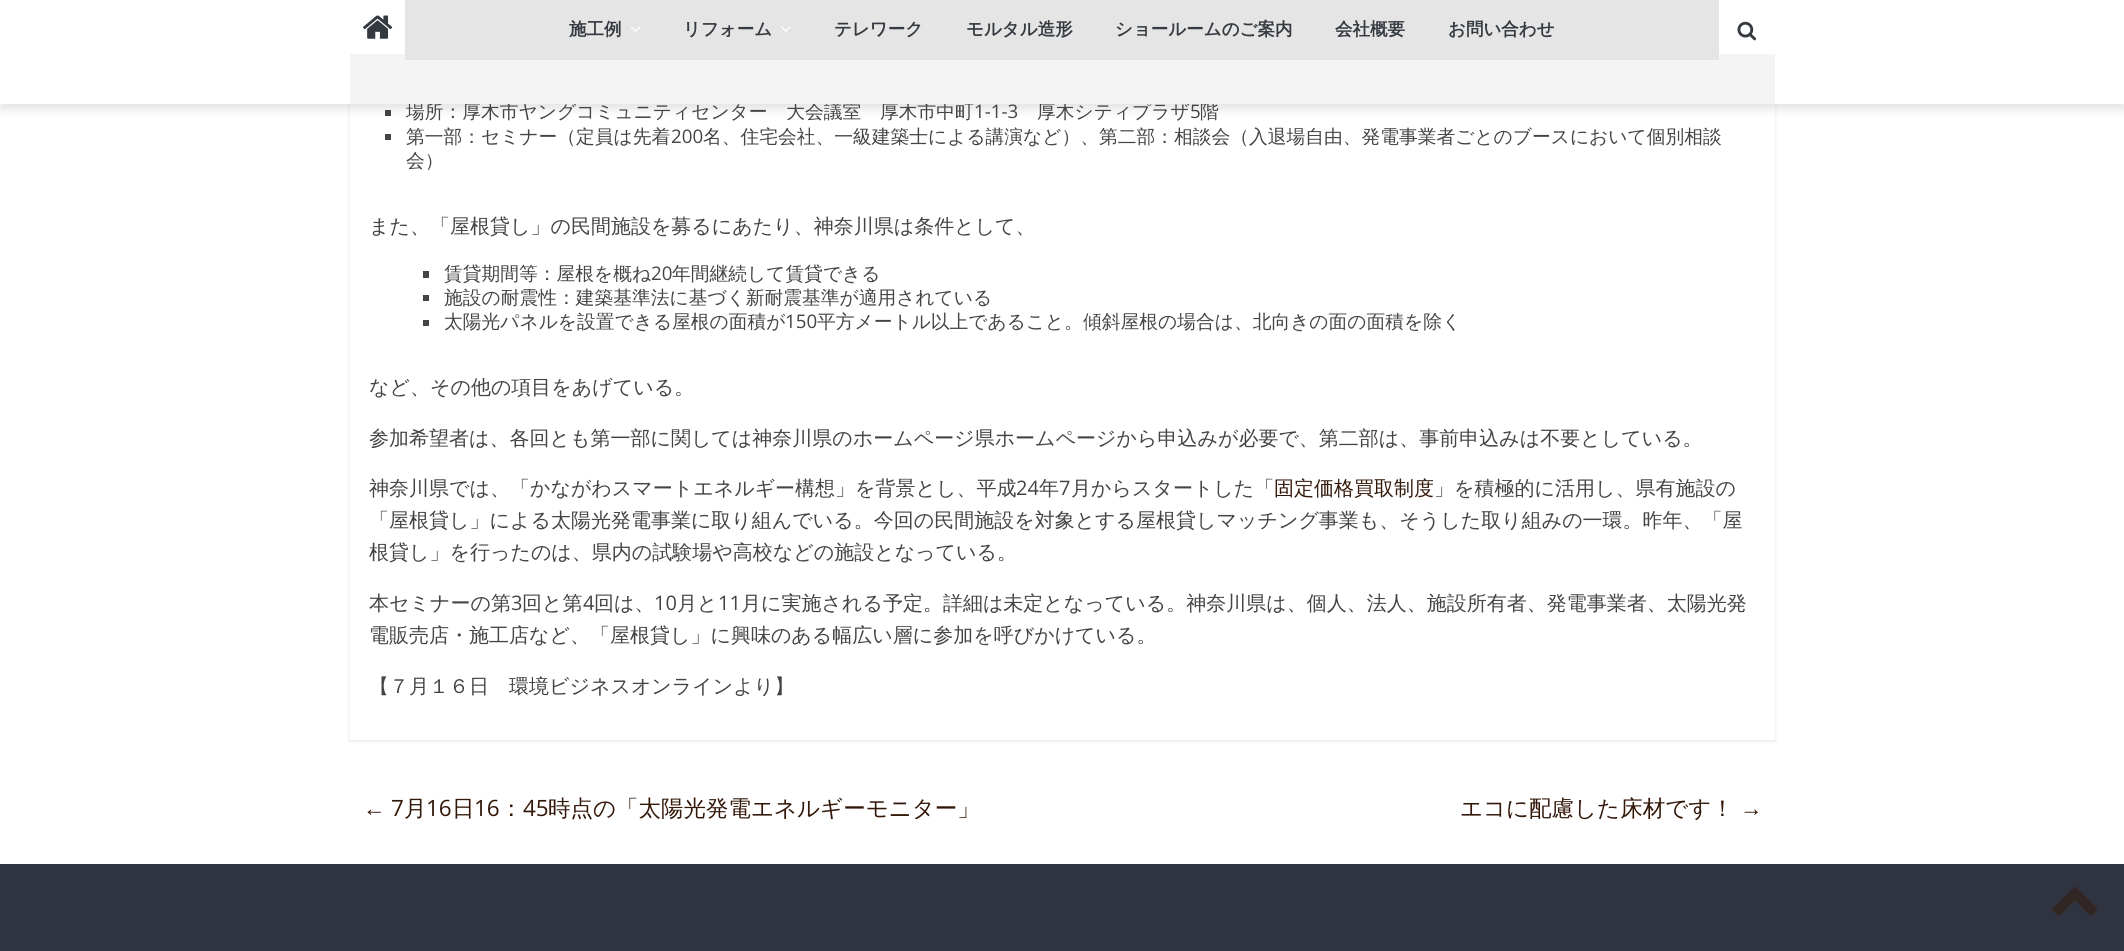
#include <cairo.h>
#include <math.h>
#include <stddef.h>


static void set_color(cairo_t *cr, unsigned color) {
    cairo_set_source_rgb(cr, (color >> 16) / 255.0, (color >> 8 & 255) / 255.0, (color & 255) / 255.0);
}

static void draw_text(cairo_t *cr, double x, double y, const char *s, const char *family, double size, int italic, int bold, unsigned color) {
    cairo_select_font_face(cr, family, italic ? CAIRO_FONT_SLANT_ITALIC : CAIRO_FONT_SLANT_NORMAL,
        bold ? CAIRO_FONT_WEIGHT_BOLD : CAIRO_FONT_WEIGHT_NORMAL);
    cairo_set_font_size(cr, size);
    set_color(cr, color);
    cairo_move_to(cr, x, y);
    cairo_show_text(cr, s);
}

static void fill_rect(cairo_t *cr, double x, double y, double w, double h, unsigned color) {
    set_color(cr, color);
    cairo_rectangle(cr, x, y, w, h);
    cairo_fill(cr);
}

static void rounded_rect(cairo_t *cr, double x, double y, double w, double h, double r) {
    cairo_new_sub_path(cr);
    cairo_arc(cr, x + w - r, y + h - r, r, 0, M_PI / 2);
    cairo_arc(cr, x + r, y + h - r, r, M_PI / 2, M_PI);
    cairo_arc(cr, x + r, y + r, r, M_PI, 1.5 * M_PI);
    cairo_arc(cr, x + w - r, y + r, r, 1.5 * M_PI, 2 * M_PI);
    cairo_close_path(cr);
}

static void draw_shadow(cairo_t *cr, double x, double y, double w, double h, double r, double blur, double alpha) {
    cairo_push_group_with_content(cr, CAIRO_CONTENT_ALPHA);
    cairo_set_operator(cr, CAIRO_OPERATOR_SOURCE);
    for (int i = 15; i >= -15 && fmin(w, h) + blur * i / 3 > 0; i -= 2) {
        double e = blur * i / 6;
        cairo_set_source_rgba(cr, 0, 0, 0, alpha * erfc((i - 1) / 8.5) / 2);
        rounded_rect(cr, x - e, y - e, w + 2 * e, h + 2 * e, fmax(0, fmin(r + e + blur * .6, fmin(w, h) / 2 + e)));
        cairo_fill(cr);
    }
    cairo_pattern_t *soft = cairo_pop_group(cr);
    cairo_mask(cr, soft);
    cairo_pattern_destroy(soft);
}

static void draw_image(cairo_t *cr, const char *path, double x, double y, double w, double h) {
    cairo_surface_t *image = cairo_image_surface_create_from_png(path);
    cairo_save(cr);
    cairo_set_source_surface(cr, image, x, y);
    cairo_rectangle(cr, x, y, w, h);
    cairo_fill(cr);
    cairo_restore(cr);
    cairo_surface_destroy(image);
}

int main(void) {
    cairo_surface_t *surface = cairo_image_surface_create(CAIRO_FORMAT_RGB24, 2124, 951);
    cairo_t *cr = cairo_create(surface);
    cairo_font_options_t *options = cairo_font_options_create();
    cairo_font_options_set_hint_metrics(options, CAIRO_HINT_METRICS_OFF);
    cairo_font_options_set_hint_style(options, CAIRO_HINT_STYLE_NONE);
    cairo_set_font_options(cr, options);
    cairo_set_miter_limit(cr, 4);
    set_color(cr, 0xFFFFFF);
    cairo_paint(cr);
    cairo_save(cr);
    cairo_set_fill_rule(cr, CAIRO_FILL_RULE_EVEN_ODD);
    cairo_new_path(cr);
    cairo_move_to(cr, 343, 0);
    cairo_line_to(cr, 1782, 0);
    cairo_line_to(cr, 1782, 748);
    cairo_line_to(cr, 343, 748);
    cairo_close_path(cr);
    cairo_move_to(cr, 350, -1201);
    cairo_line_to(cr, 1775, -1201);
    cairo_line_to(cr, 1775, 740);
    cairo_line_to(cr, 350, 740);
    cairo_close_path(cr);
    cairo_clip(cr);
    set_color(cr, 0x000000);
    draw_shadow(cr, 350, -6, 1425, 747, 0, 2, 0.1);
    cairo_restore(cr);
    fill_rect(cr, 385, 110, 6, 6, 0x444444);
    set_color(cr, 0x000000);
    draw_shadow(cr, 0, 6, 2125, 104, 0, 4, 0.1);
    draw_text(cr, 406, 118, "場所：厚木市ヤングコミュニティセンター　大会議室　厚木市中町", "WenQuanYi Zen Hei Medium", 18.75, 0, 0, 0x444444);
    draw_text(cr, 1037, 118, "厚木シティプラザ", "WenQuanYi Zen Hei Medium", 18.75, 0, 0, 0x444444);
    draw_text(cr, 1200, 118, "階", "WenQuanYi Zen Hei Medium", 18.75, 0, 0, 0x444444);
    fill_rect(cr, 0, 0, 2124, 104, 0xFFFFFF);
    draw_image(cr, "assets/img1.png", 363, 15, 30, 24);
    fill_rect(cr, 350, 54, 1425, 50, 0xF4F4F4);
    fill_rect(cr, 405, 0, 1314, 60, 0xE5E5E5);
    draw_text(cr, 569, 35, "施工例", "WenQuanYi Zen Hei", 17.5, 0, 1, 0x343A40);
    draw_image(cr, "assets/img2.png", 631, 26, 10, 6);
    draw_text(cr, 683, 35, "リフォーム", "WenQuanYi Zen Hei", 17.5, 0, 1, 0x343A40);
    draw_image(cr, "assets/img2.png", 781, 26, 10, 6);
    draw_text(cr, 834, 35, "テレワーク", "WenQuanYi Zen Hei", 17.5, 0, 1, 0x343A40);
    draw_text(cr, 966, 35, "モルタル造形", "WenQuanYi Zen Hei", 17.5, 0, 1, 0x343A40);
    draw_text(cr, 1115, 35, "ショールームのご案内", "WenQuanYi Zen Hei", 17.5, 0, 1, 0x343A40);
    draw_text(cr, 1335, 35, "会社概要", "WenQuanYi Zen Hei", 17.5, 0, 1, 0x343A40);
    draw_text(cr, 1448, 35, "お問い合わせ", "WenQuanYi Zen Hei", 17.5, 0, 1, 0x343A40);
    draw_image(cr, "assets/img3.png", 1737, 21, 19, 20);
    draw_text(cr, 974, 118, "1-1-3", "Open Sans", 18.75, 0, 0, 0x444444);
    draw_text(cr, 1190, 118, "5", "Open Sans", 18.75, 0, 0, 0x444444);
    fill_rect(cr, 385, 134, 6, 6, 0x444444);
    draw_text(cr, 406, 143, "第一部：セミナー（定員は先着", "WenQuanYi Zen Hei Medium", 18.75, 0, 0, 0x444444);
    draw_text(cr, 671, 143, "200", "Open Sans", 18.75, 0, 0, 0x444444);
    draw_text(cr, 703, 143, "名、住宅会社、一級建築士による講演など）、第二部：相談会（入退場自由、発電事業者ごとのブースにおいて個別相談", "WenQuanYi Zen Hei Medium", 18.75, 0, 0, 0x444444);
    draw_text(cr, 406, 167, "会）", "WenQuanYi Zen Hei Medium", 18.75, 0, 0, 0x444444);
    draw_text(cr, 369, 233, "また、「屋根貸し」の民間施設を募るにあたり、神奈川県は条件として、", "WenQuanYi Zen Hei Medium", 20, 0, 0, 0x444444);
    fill_rect(cr, 423, 271, 6, 7, 0x444444);
    draw_text(cr, 444, 280, "賃貸期間等：屋根を概ね", "WenQuanYi Zen Hei Medium", 18.75, 0, 0, 0x444444);
    draw_text(cr, 651, 280, "20", "Open Sans", 18.75, 0, 0, 0x444444);
    draw_text(cr, 672, 280, "年間継続して賃貸できる", "WenQuanYi Zen Hei Medium", 18.75, 0, 0, 0x444444);
    fill_rect(cr, 423, 295, 6, 6, 0x444444);
    draw_text(cr, 444, 304, "施設の耐震性：建築基準法に基づく新耐震基準が適用されている", "WenQuanYi Zen Hei Medium", 18.75, 0, 0, 0x444444);
    fill_rect(cr, 423, 320, 6, 6, 0x444444);
    draw_text(cr, 444, 328, "太陽光パネルを設置できる屋根の面積が", "WenQuanYi Zen Hei Medium", 18.75, 0, 0, 0x444444);
    draw_text(cr, 785, 328, "150", "Open Sans", 18.75, 0, 0, 0x444444);
    draw_text(cr, 817, 328, "平方メートル以上であること。傾斜屋根の場合は、北向きの面の面積を除く", "WenQuanYi Zen Hei Medium", 18.75, 0, 0, 0x444444);
    draw_text(cr, 369, 394, "など、その他の項目をあげている。", "WenQuanYi Zen Hei Medium", 20, 0, 0, 0x444444);
    draw_text(cr, 369, 445, "参加希望者は、各回とも第一部に関しては神奈川県のホームページ県ホームページから申込みが必要で、第二部は、事前申込みは不要としている。", "WenQuanYi Zen Hei Medium", 20, 0, 0, 0x444444);
    draw_text(cr, 369, 495, "神奈川県では、「かながわスマートエネルギー構想」を背景とし、平成", "WenQuanYi Zen Hei Medium", 20, 0, 0, 0x444444);
    draw_text(cr, 1016, 495, "24", "Open Sans", 20, 0, 0, 0x444444);
    draw_text(cr, 1039, 495, "年", "WenQuanYi Zen Hei Medium", 20, 0, 0, 0x444444);
    draw_text(cr, 1059, 495, "7", "Open Sans", 20, 0, 0, 0x444444);
    draw_text(cr, 1071, 495, "月からスタートした「", "WenQuanYi Zen Hei Medium", 20, 0, 0, 0x444444);
    draw_text(cr, 1274, 495, "固定価格買取制度", "WenQuanYi Zen Hei Medium", 20, 0, 0, 0x331809);
    draw_text(cr, 1434, 495, "」を積極的に活用し、県有施設の", "WenQuanYi Zen Hei Medium", 20, 0, 0, 0x444444);
    draw_text(cr, 369, 527, "「屋根貸し」による太陽光発電事業に取り組んでいる。今回の民間施設を対象とする屋根貸しマッチング事業も、そうした取り組みの一環。昨年、「屋", "WenQuanYi Zen Hei Medium", 20, 0, 0, 0x444444);
    draw_text(cr, 369, 559, "根貸し」を行ったのは、県内の試験場や高校などの施設となっている。", "WenQuanYi Zen Hei Medium", 20, 0, 0, 0x444444);
    draw_text(cr, 369, 610, "本セミナーの第", "WenQuanYi Zen Hei Medium", 20, 0, 0, 0x444444);
    draw_text(cr, 511, 610, "3", "Open Sans", 20, 0, 0, 0x444444);
    draw_text(cr, 522, 610, "回と第", "WenQuanYi Zen Hei Medium", 20, 0, 0, 0x444444);
    draw_text(cr, 583, 610, "4", "Open Sans", 20, 0, 0, 0x444444);
    draw_text(cr, 594, 610, "回は、", "WenQuanYi Zen Hei Medium", 20, 0, 0, 0x444444);
    draw_text(cr, 654, 610, "10", "Open Sans", 20, 0, 0, 0x444444);
    draw_text(cr, 677, 610, "月と", "WenQuanYi Zen Hei Medium", 20, 0, 0, 0x444444);
    draw_text(cr, 718, 610, "11", "Open Sans", 20, 0, 0, 0x444444);
    draw_text(cr, 741, 610, "月に実施される予定。詳細は未定となっている。神奈川県は、個人、法人、施設所有者、発電事業者、太陽光発", "WenQuanYi Zen Hei Medium", 20, 0, 0, 0x444444);
    draw_text(cr, 369, 642, "電販売店・施工店など、「屋根貸し」に興味のある幅広い層に参加を呼びかけている。", "WenQuanYi Zen Hei Medium", 20, 0, 0, 0x444444);
    draw_text(cr, 369, 693, "【７月１６日　環境ビジネスオンラインより】", "WenQuanYi Zen Hei Medium", 20, 0, 0, 0x444444);
    draw_text(cr, 363, 816, "←", "Liberation Serif", 22.5, 0, 0, 0x331809);
    draw_text(cr, 391, 816, "7", "Open Sans", 22.5, 0, 0, 0x331809);
    draw_text(cr, 404, 816, "月", "WenQuanYi Zen Hei Medium", 22.5, 0, 0, 0x331809);
    draw_text(cr, 426, 816, "16", "Open Sans", 22.5, 0, 0, 0x331809);
    draw_text(cr, 452, 816, "日", "WenQuanYi Zen Hei Medium", 22.5, 0, 0, 0x331809);
    draw_text(cr, 474, 816, "16", "Open Sans", 22.5, 0, 0, 0x331809);
    draw_text(cr, 500, 816, "：", "WenQuanYi Zen Hei Medium", 22.5, 0, 0, 0x331809);
    draw_text(cr, 523, 816, "45", "Open Sans", 22.5, 0, 0, 0x331809);
    draw_text(cr, 548, 816, "時点の「太陽光発電エネルギーモニター」", "WenQuanYi Zen Hei Medium", 22.5, 0, 0, 0x331809);
    draw_text(cr, 1460, 816, "エコに配慮した床材です！", "WenQuanYi Zen Hei Medium", 22.5, 0, 0, 0x331809);
    draw_text(cr, 1740, 816, "→", "Liberation Serif", 22.5, 0, 0, 0x331809);
    fill_rect(cr, 0, 864, 2124, 87, 0x303440);
    draw_image(cr, "assets/img4.png", 2052, 887, 46, 29);
    cairo_surface_write_to_png(surface, "output.png");
    cairo_font_options_destroy(options);
    cairo_destroy(cr);
    cairo_surface_destroy(surface);
    return 0;
}
